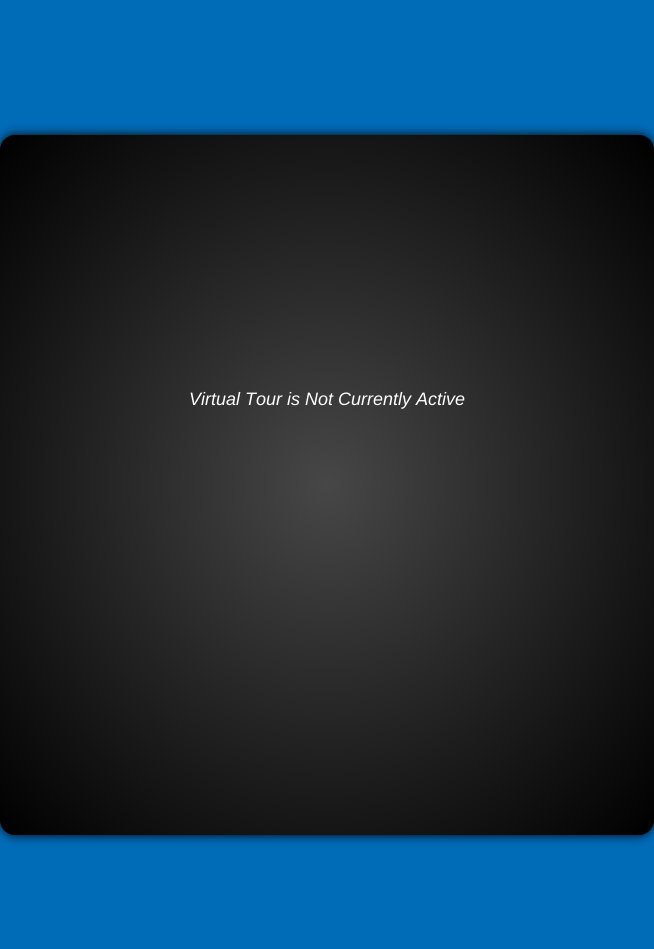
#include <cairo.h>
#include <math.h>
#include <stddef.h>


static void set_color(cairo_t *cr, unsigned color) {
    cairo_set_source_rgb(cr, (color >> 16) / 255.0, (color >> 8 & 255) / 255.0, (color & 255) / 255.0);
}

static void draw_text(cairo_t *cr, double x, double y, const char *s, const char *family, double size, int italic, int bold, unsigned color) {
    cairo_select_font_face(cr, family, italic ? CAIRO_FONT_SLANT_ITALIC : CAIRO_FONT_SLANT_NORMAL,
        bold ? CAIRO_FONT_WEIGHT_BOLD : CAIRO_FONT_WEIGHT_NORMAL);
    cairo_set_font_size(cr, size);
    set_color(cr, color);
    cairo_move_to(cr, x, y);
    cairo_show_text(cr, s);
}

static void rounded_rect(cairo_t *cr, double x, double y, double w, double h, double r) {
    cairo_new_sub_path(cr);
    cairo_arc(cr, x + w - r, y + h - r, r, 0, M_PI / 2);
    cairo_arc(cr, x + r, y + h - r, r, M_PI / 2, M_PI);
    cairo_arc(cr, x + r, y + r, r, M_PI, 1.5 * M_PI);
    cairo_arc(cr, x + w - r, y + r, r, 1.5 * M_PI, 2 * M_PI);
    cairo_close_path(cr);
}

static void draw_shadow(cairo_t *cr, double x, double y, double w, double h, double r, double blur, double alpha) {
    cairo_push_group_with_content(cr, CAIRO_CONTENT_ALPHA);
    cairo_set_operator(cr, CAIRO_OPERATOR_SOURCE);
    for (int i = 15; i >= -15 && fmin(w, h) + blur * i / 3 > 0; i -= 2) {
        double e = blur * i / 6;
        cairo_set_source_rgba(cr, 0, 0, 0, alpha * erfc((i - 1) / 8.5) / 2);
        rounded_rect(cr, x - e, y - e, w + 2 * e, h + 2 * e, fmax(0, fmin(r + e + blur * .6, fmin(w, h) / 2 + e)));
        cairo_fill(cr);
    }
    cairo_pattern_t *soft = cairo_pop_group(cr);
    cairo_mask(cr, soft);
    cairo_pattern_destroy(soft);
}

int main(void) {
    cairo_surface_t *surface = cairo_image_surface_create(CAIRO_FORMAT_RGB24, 654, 949);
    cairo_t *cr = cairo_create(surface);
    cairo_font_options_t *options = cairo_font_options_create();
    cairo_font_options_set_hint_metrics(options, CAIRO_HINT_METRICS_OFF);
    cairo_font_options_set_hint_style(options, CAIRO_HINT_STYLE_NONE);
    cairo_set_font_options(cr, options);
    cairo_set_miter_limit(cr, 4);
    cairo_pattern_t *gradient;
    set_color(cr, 0x006BB7);
    cairo_paint(cr);
    set_color(cr, 0x000000);
    draw_shadow(cr, 0, 135, 654, 700, 15, 5, 1);
    gradient = cairo_pattern_create_radial(0, 0, 0, 0, 0, 1);
    cairo_pattern_set_matrix(gradient, &(cairo_matrix_t){1.0 / 462, 0, 0, 1.0 / 495, -1.0 * 327 / 462, -1.0 * 485 / 495});
    cairo_pattern_add_color_stop_rgba(gradient, 0, 0.278, 0.278, 0.278, 1);
    cairo_pattern_add_color_stop_rgba(gradient, 1, 0, 0, 0, 1);
    cairo_set_source(cr, gradient);
    cairo_pattern_destroy(gradient);
    rounded_rect(cr, 0, 135, 654, 700, 15);
    cairo_fill(cr);
    draw_text(cr, 189, 405, "Virtual Tour is Not Currently Active", "Liberation Sans", 18, 1, 0, 0xFFFFFF);
    cairo_surface_write_to_png(surface, "output.png");
    cairo_font_options_destroy(options);
    cairo_destroy(cr);
    cairo_surface_destroy(surface);
    return 0;
}
